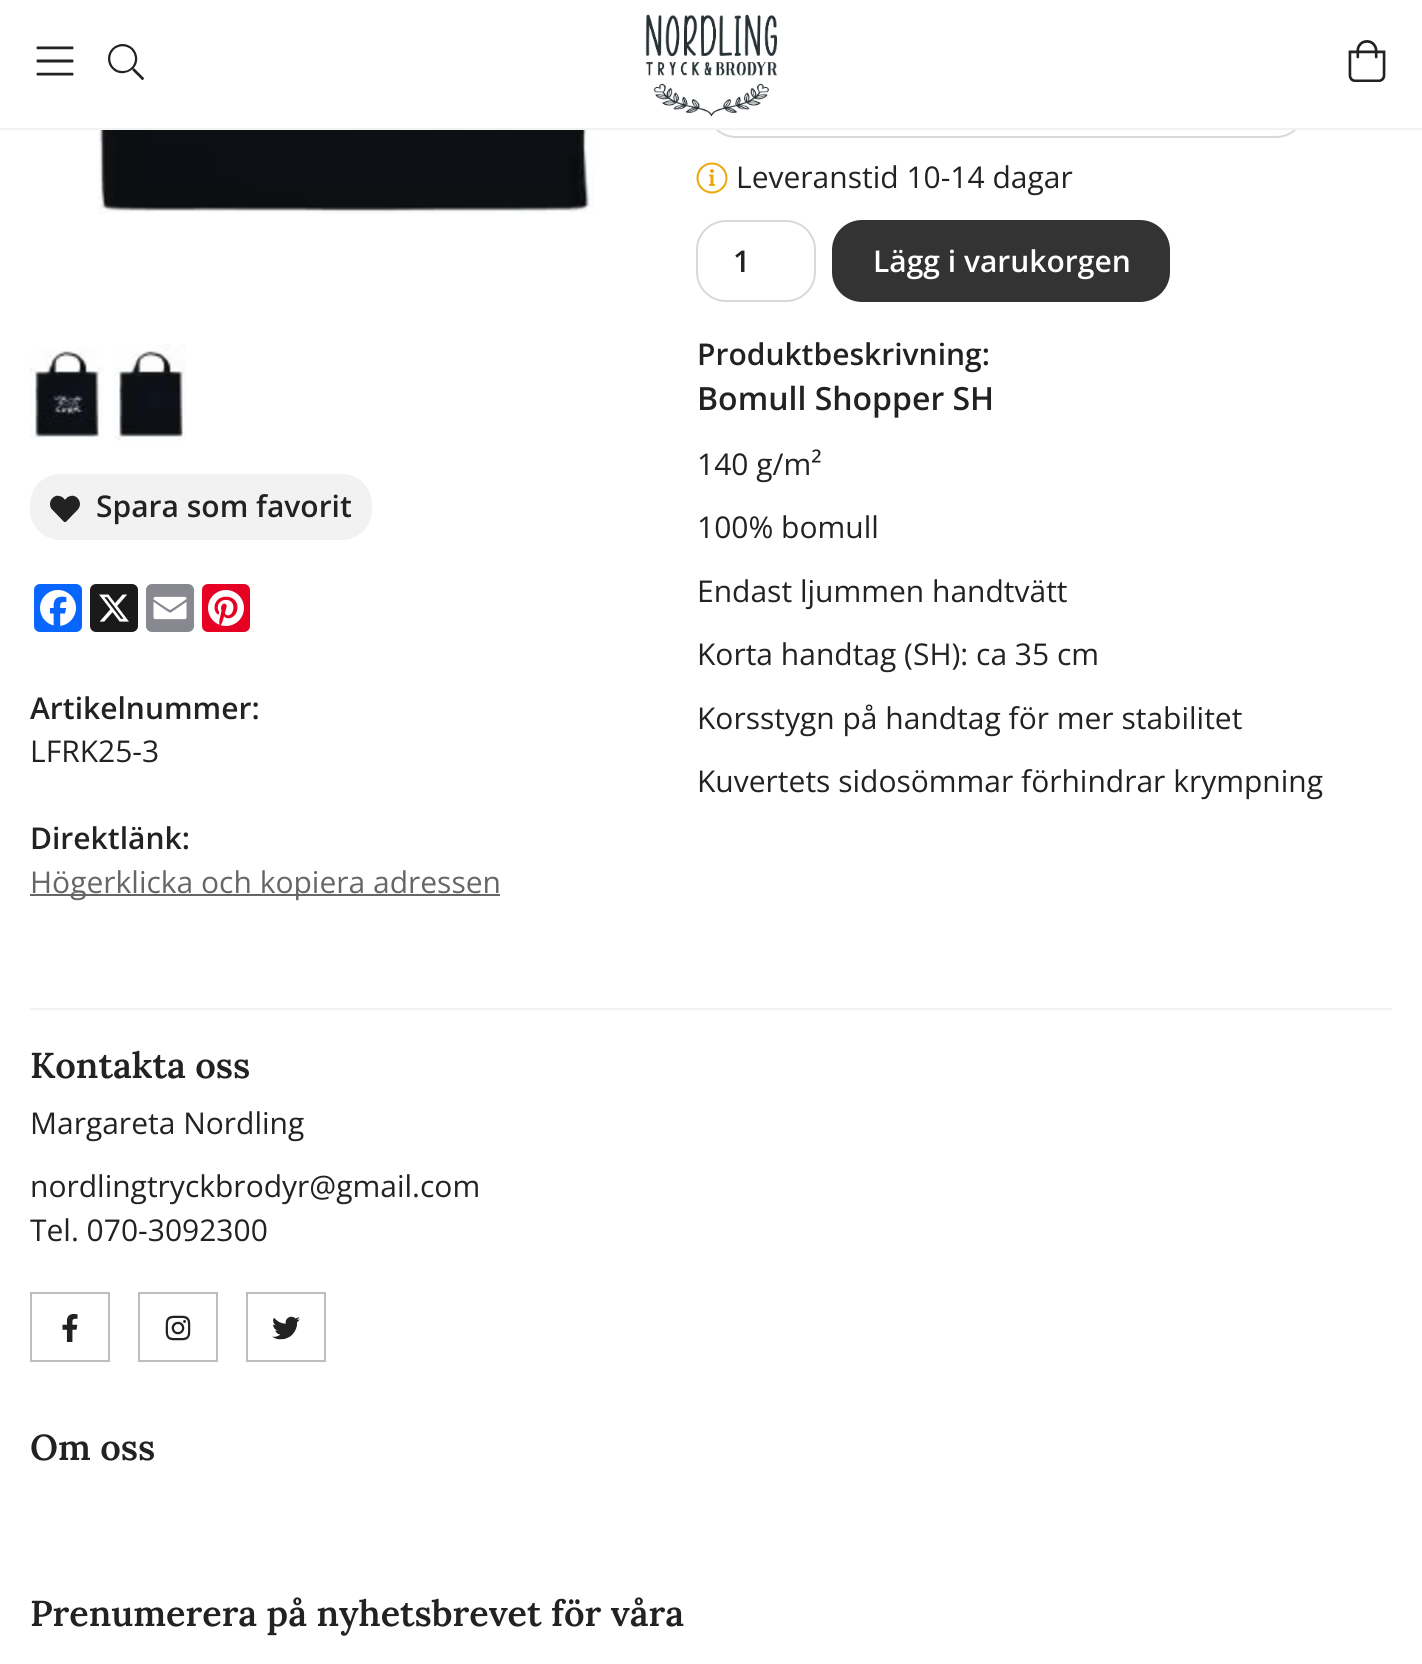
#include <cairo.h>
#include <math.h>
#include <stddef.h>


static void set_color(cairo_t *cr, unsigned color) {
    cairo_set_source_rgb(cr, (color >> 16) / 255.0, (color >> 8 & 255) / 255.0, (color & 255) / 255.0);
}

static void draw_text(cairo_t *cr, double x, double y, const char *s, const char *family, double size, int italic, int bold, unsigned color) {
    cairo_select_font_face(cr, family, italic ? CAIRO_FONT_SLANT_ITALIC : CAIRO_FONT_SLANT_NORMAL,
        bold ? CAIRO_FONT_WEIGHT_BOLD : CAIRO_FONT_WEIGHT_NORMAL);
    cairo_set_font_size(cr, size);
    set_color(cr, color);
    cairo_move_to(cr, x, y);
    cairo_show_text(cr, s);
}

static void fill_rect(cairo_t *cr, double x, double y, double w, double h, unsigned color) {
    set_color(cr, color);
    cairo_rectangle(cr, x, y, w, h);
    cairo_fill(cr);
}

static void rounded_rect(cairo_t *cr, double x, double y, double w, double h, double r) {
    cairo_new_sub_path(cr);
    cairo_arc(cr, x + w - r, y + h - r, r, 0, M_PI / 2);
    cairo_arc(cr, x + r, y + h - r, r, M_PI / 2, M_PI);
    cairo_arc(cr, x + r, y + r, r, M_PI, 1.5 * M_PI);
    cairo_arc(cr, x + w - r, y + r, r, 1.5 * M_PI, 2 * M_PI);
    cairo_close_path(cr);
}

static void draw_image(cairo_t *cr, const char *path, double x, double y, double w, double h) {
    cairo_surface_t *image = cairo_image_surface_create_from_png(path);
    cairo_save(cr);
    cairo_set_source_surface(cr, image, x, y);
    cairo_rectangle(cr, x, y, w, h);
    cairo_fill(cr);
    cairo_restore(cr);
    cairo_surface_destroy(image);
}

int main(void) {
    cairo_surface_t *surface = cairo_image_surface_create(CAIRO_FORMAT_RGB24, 1422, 1664);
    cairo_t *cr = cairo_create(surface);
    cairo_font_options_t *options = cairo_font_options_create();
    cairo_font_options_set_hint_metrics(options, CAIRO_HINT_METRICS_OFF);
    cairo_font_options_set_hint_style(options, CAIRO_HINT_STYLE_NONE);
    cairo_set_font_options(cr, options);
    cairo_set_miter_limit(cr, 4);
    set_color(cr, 0xFFFFFF);
    cairo_paint(cr);
    rounded_rect(cr, 707, 65, 598, 72, 29);
    set_color(cr, 0xD9D9D9);
    cairo_stroke(cr);
    fill_rect(cr, 706, 64, 600, 64, 0xFFFFFF);
    fill_rect(cr, 0, 128, 1422, 2, 0xF2F2F2);
    draw_image(cr, "assets/img1.png", 36, 46, 38, 30);
    draw_image(cr, "assets/img2.png", 108, 44, 36, 36);
    draw_image(cr, "assets/img3.png", 645, 14, 133, 103);
    draw_image(cr, "assets/img4.png", 1348, 40, 38, 42);
    draw_image(cr, "assets/img5.png", 98, 130, 496, 84);
    draw_image(cr, "assets/img6.png", 30, 348, 74, 92);
    draw_image(cr, "assets/img7.png", 114, 344, 72, 97);
    draw_image(cr, "assets/img8.png", 696, 162, 32, 32);
    draw_text(cr, 736, 188, "Leveranstid 10-14 dagar", "Open Sans", 30, 0, 0, 0x222222);
    rounded_rect(cr, 697, 221, 118, 80, 29);
    set_color(cr, 0xD9D9D9);
    cairo_stroke(cr);
    draw_text(cr, 733, 272, "1", "Open Sans SemiBold", 30, 0, 0, 0x222222);
    set_color(cr, 0x333333);
    rounded_rect(cr, 832, 220, 338, 82, 30);
    cairo_fill(cr);
    draw_text(cr, 873, 272, "Lägg i varukorgen", "Open Sans SemiBold", 30, 0, 0, 0xFFFFFF);
    draw_text(cr, 697, 365, "Produktbeskrivning:", "Open Sans SemiBold", 30, 0, 0, 0x222222);
    draw_text(cr, 697, 410, "Bomull Shopper SH", "Open Sans SemiBold", 32, 0, 0, 0x222222);
    draw_text(cr, 697, 475, "140 g/m²", "Open Sans", 30, 0, 0, 0x222222);
    draw_text(cr, 697, 538, "100% bomull", "Open Sans", 30, 0, 0, 0x222222);
    draw_text(cr, 697, 602, "Endast ljummen handtvätt", "Open Sans", 30, 0, 0, 0x222222);
    draw_text(cr, 697, 665, "Korta handtag (SH): ca 35 cm", "Open Sans", 30, 0, 0, 0x222222);
    draw_text(cr, 697, 729, "Korsstygn på handtag för mer stabilitet", "Open Sans", 30, 0, 0, 0x222222);
    draw_text(cr, 697, 792, "Kuvertets sidosömmar förhindrar krympning", "Open Sans", 30, 0, 0, 0x222222);
    set_color(cr, 0xF2F2F2);
    rounded_rect(cr, 30, 474, 342, 66, 30);
    cairo_fill(cr);
    draw_image(cr, "assets/img9.png", 50, 495, 30, 27);
    draw_text(cr, 96, 517, "Spara som favorit", "Open Sans SemiBold", 30, 0, 0, 0x222222);
    set_color(cr, 0x0866FF);
    rounded_rect(cr, 34, 584, 48, 48, 6);
    cairo_fill(cr);
    draw_image(cr, "assets/img10.png", 40, 590, 36, 36);
    set_color(cr, 0x1A1A1A);
    rounded_rect(cr, 90, 584, 48, 48, 6);
    cairo_fill(cr);
    draw_image(cr, "assets/img11.png", 99, 594, 30, 28);
    set_color(cr, 0x888990);
    rounded_rect(cr, 146, 584, 48, 48, 6);
    cairo_fill(cr);
    draw_image(cr, "assets/img12.png", 153, 596, 34, 24);
    set_color(cr, 0xE60023);
    rounded_rect(cr, 202, 584, 48, 48, 6);
    cairo_fill(cr);
    draw_image(cr, "assets/img13.png", 208, 590, 36, 36);
    draw_text(cr, 30, 719, "Artikelnummer:", "Open Sans SemiBold", 30, 0, 0, 0x222222);
    draw_text(cr, 30, 762, "LFRK25-3", "Open Sans", 30, 0, 0, 0x222222);
    draw_text(cr, 30, 849, "Direktlänk:", "Open Sans SemiBold", 30, 0, 0, 0x222222);
    fill_rect(cr, 30, 894, 470, 2, 0x666666);
    draw_text(cr, 30, 893, "Högerklicka och kopiera adressen", "Open Sans", 30, 0, 0, 0x666666);
    fill_rect(cr, 30, 1008, 1362, 2, 0xF2F2F2);
    draw_text(cr, 30, 1078, "Kontakta oss", "Lora SemiBold", 36, 0, 0, 0x222222);
    draw_text(cr, 30, 1134, "Margareta Nordling", "Open Sans", 30, 0, 0, 0x222222);
    draw_text(cr, 30, 1197, "nordlingtryckbrodyr@gmail.com", "Open Sans", 30, 0, 0, 0x222222);
    draw_text(cr, 30, 1241, "Tel. 070-3092300", "Open Sans", 30, 0, 0, 0x222222);
    cairo_rectangle(cr, 31, 1293, 78, 68);
    set_color(cr, 0xBDBDBD);
    cairo_stroke(cr);
    draw_image(cr, "assets/img14.png", 62, 1314, 16, 28);
    cairo_rectangle(cr, 139, 1293, 78, 68);
    cairo_stroke(cr);
    draw_image(cr, "assets/img15.png", 165, 1315, 26, 26);
    cairo_rectangle(cr, 247, 1293, 78, 68);
    cairo_stroke(cr);
    draw_image(cr, "assets/img16.png", 272, 1316, 28, 24);
    draw_text(cr, 30, 1460, "Om oss", "Lora SemiBold", 36, 0, 0, 0x222222);
    draw_text(cr, 30, 1626, "Prenumerera på nyhetsbrevet för våra", "Lora SemiBold", 36, 0, 0, 0x222222);
    cairo_surface_write_to_png(surface, "output.png");
    cairo_font_options_destroy(options);
    cairo_destroy(cr);
    cairo_surface_destroy(surface);
    return 0;
}
